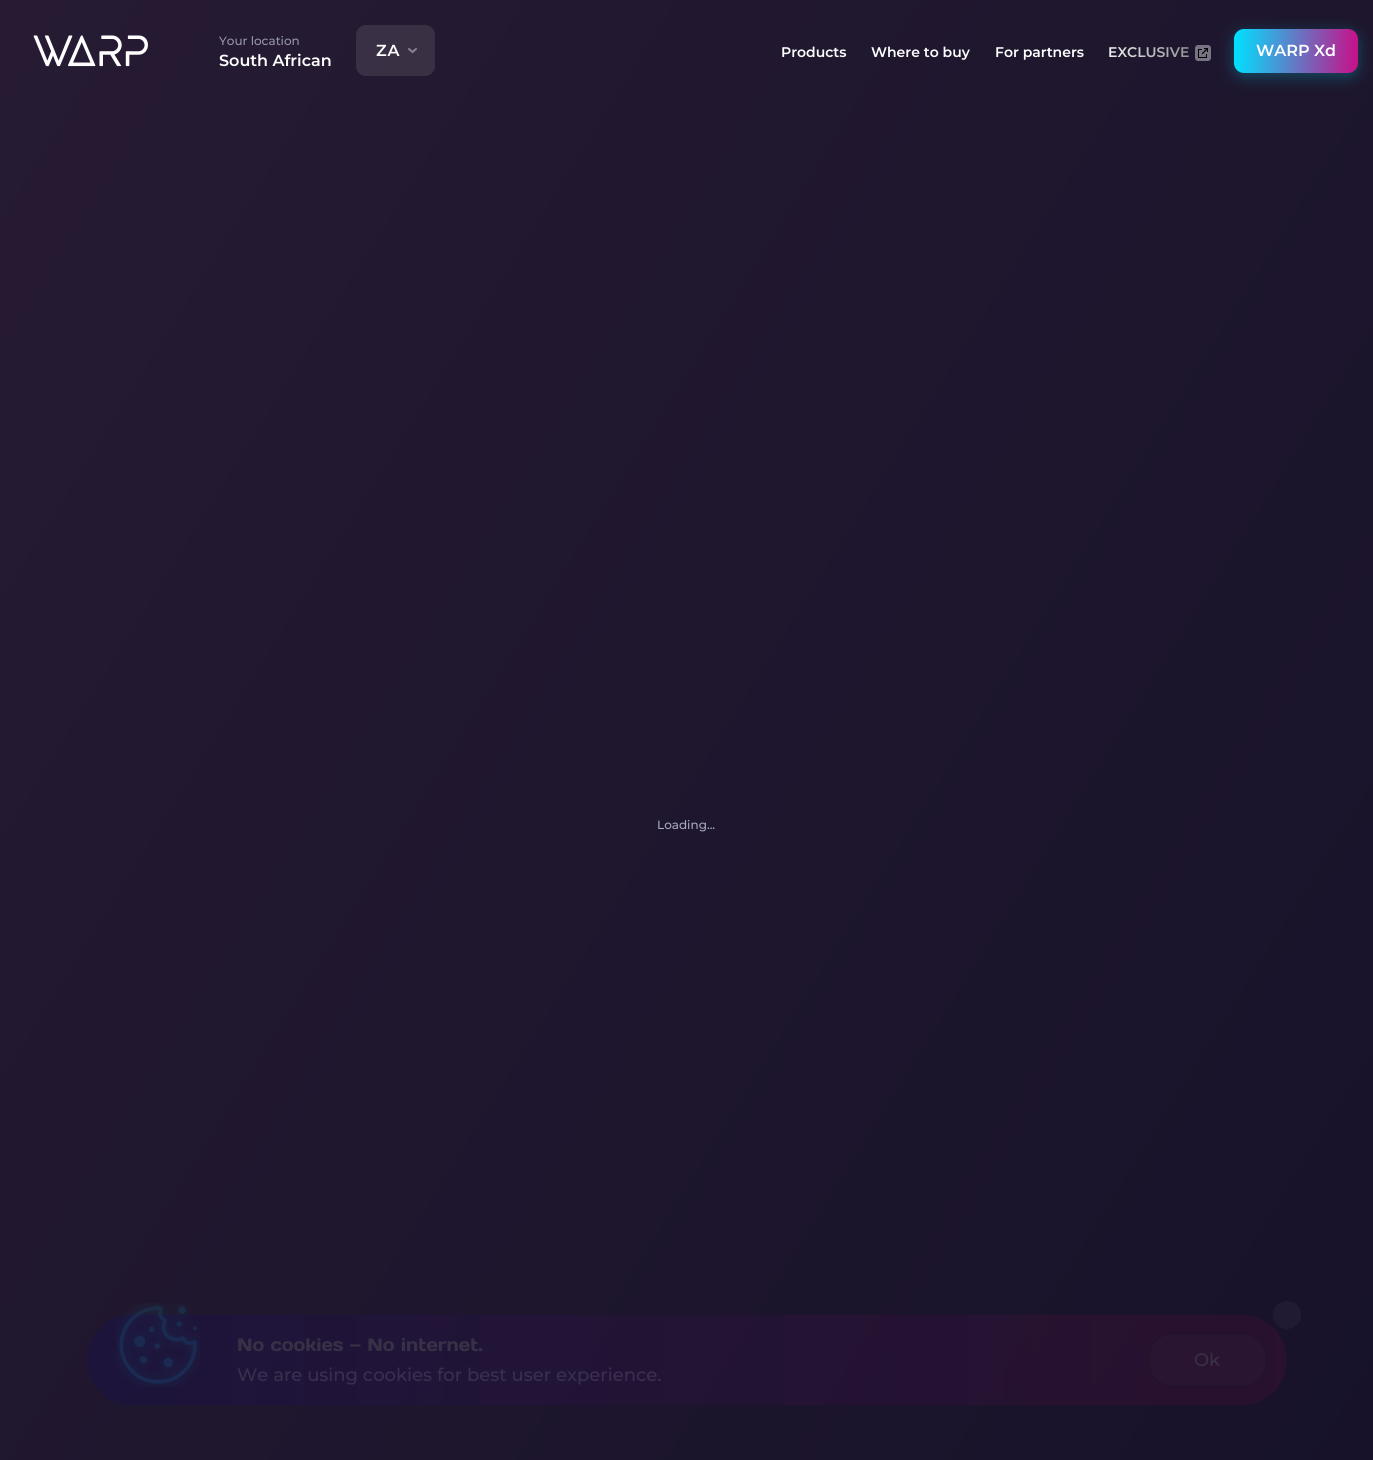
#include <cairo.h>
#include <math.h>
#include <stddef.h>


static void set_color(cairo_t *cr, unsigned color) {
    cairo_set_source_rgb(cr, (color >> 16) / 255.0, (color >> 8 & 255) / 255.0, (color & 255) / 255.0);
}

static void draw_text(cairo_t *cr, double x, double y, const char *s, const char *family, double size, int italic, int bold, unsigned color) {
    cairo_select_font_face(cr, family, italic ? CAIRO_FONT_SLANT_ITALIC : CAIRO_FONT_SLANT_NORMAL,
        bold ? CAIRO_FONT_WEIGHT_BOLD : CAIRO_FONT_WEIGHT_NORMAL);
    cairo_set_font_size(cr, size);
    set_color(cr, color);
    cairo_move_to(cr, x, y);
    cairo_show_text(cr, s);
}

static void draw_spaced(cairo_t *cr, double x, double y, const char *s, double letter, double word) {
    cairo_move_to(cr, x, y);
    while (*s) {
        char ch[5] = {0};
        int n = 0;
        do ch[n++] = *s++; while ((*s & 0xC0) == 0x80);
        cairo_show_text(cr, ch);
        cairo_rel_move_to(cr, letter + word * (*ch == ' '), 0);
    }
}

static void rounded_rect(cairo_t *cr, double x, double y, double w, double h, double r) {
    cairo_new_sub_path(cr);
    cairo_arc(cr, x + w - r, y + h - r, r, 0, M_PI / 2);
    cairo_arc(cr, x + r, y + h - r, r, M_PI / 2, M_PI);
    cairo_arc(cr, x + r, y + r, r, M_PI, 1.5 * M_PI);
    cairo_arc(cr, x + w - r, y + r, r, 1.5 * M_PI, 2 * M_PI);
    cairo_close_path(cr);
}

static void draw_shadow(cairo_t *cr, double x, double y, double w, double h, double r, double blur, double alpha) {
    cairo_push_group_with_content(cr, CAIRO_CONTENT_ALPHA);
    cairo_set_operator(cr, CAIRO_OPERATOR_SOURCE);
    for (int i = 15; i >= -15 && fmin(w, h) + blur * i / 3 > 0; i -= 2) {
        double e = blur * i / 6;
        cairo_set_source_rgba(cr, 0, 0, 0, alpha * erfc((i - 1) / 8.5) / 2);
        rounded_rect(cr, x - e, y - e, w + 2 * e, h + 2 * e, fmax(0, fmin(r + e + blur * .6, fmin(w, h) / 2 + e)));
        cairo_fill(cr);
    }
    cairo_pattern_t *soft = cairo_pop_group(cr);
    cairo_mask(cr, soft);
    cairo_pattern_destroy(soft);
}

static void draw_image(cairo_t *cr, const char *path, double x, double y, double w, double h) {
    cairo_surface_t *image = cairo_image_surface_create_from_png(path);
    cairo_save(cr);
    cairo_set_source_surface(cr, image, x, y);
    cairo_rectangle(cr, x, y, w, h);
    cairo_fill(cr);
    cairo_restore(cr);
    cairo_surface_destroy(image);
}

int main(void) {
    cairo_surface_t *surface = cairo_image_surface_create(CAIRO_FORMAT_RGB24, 1373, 1460);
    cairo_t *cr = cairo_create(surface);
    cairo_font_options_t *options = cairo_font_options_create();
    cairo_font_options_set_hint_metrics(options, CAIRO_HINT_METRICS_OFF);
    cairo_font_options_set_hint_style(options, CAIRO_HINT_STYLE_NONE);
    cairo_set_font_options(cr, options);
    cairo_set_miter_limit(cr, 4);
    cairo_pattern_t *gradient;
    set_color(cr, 0xFFFFFF);
    cairo_paint(cr);
    gradient = cairo_pattern_create_linear(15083, 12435, -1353, 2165);
    cairo_pattern_add_color_stop_rgba(gradient, 0, 0.149, 0.106, 0.196, 1);
    cairo_pattern_add_color_stop_rgba(gradient, 0.25, 0.098, 0.192, 0.247, 1);
    cairo_pattern_add_color_stop_rgba(gradient, 0.5, 0, 0.208, 0.196, 1);
    cairo_pattern_add_color_stop_rgba(gradient, 0.75, 0, 0.02, 0.118, 1);
    cairo_pattern_add_color_stop_rgba(gradient, 1, 0.149, 0.106, 0.196, 1);
    cairo_set_source(cr, gradient);
    cairo_pattern_destroy(gradient);
    cairo_rectangle(cr, 0, 0, 1373, 1460);
    cairo_fill(cr);
    draw_image(cr, "assets/img1.png", 33, 35, 115, 32);
    draw_text(cr, 219, 45, "Your location", "Montserrat Medium", 12, 0, 0, 0x9595AD);
    draw_text(cr, 219, 66, "South African", "Montserrat SemiBold", 16, 0, 0, 0xFFFFFF);
    cairo_set_source_rgba(cr, 1, 1, 1, 0.1);
    rounded_rect(cr, 356, 25, 79, 51, 10);
    cairo_fill(cr);
    set_color(cr, 0xFFFFFF);
    draw_spaced(cr, 376, 56, "ZA", 1, 0);
    cairo_new_path(cr);
    cairo_move_to(cr, 416, 49);
    cairo_line_to(cr, 412.5, 52);
    cairo_line_to(cr, 409, 49);
    set_color(cr, 0x88838F);
    cairo_set_line_cap(cr, CAIRO_LINE_CAP_ROUND);
    cairo_stroke(cr);
    draw_text(cr, 781, 57, "Products", "Montserrat SemiBold", 14, 0, 0, 0xFFFFFF);
    draw_text(cr, 871, 57, "Where to buy", "Montserrat SemiBold", 14, 0, 0, 0xFFFFFF);
    draw_text(cr, 995, 57, "For partners", "Montserrat SemiBold", 14, 0, 0, 0xFFFFFF);
    gradient = cairo_pattern_create_linear(1108, 52, 1214, 52);
    cairo_pattern_add_color_stop_rgba(gradient, 0, 0.945, 0.945, 0.945, 1);
    cairo_pattern_add_color_stop_rgba(gradient, 1, 0.467, 0.467, 0.467, 1);
    cairo_set_source(cr, gradient);
    cairo_pattern_destroy(gradient);
    cairo_move_to(cr, 1108, 57);
    cairo_show_text(cr, "EXCLUSIVE");
    set_color(cr, 0x787382);
    rounded_rect(cr, 1195, 45, 16, 16, 3);
    cairo_fill(cr);
    draw_image(cr, "assets/img2.png", 1198, 48, 10, 10);
    set_color(cr, 0x00C9E4);
    draw_shadow(cr, 1234, 33, 124, 44, 10, 7.5, 0.3);
    gradient = cairo_pattern_create_linear(1233, 48, 1359, 54);
    cairo_pattern_add_color_stop_rgba(gradient, 0.01, 0, 0.882, 1, 1);
    cairo_pattern_add_color_stop_rgba(gradient, 1, 0.788, 0.055, 0.537, 1);
    cairo_set_source(cr, gradient);
    cairo_pattern_destroy(gradient);
    rounded_rect(cr, 1234, 29, 124, 44, 10);
    cairo_fill(cr);
    draw_text(cr, 1256, 56, "WARP Xd", "Montserrat SemiBold", 16, 0, 0, 0xFFFFFF);
    draw_text(cr, 657, 829, "Loading...", "Montserrat Medium", 12, 0, 0, 0xA6A8C0);
    gradient = cairo_pattern_create_linear(87, 1360, 1287, 1360);
    cairo_pattern_add_color_stop_rgba(gradient, 0, 0.004, 0, 0.608, 0.11);
    cairo_pattern_add_color_stop_rgba(gradient, 1, 0.702, 0, 0.302, 0.11);
    cairo_set_source(cr, gradient);
    cairo_pattern_destroy(gradient);
    rounded_rect(cr, 87, 1315, 1200, 90, 45);
    cairo_fill(cr);
    draw_image(cr, "assets/img3.png", 116, 1303, 84, 84);
    draw_text(cr, 237, 1351, "No cookies — No internet.", "Days One", 18, 0, 0, 0x383146);
    draw_text(cr, 237, 1381, "We are using cookies for best user experience.", "Montserrat Medium", 18, 0, 0, 0x3A2F4E);
    set_color(cr, 0x291431);
    rounded_rect(cr, 1148.5, 1333.5, 118, 53, 24.5);
    cairo_fill_preserve(cr);
    set_color(cr, 0x1F122B);
    cairo_set_line_width(cr, 1);
    cairo_set_line_cap(cr, CAIRO_LINE_CAP_BUTT);
    cairo_stroke(cr);
    draw_text(cr, 1194, 1366, "Ok", "Montserrat Medium", 18, 0, 0, 0x383146);
    set_color(cr, 0x201B32);
    cairo_new_path(cr);
    cairo_arc(cr, 1287, 1315, 14, 0, 2 * M_PI);
    cairo_fill(cr);
    cairo_surface_write_to_png(surface, "output.png");
    cairo_font_options_destroy(options);
    cairo_destroy(cr);
    cairo_surface_destroy(surface);
    return 0;
}
